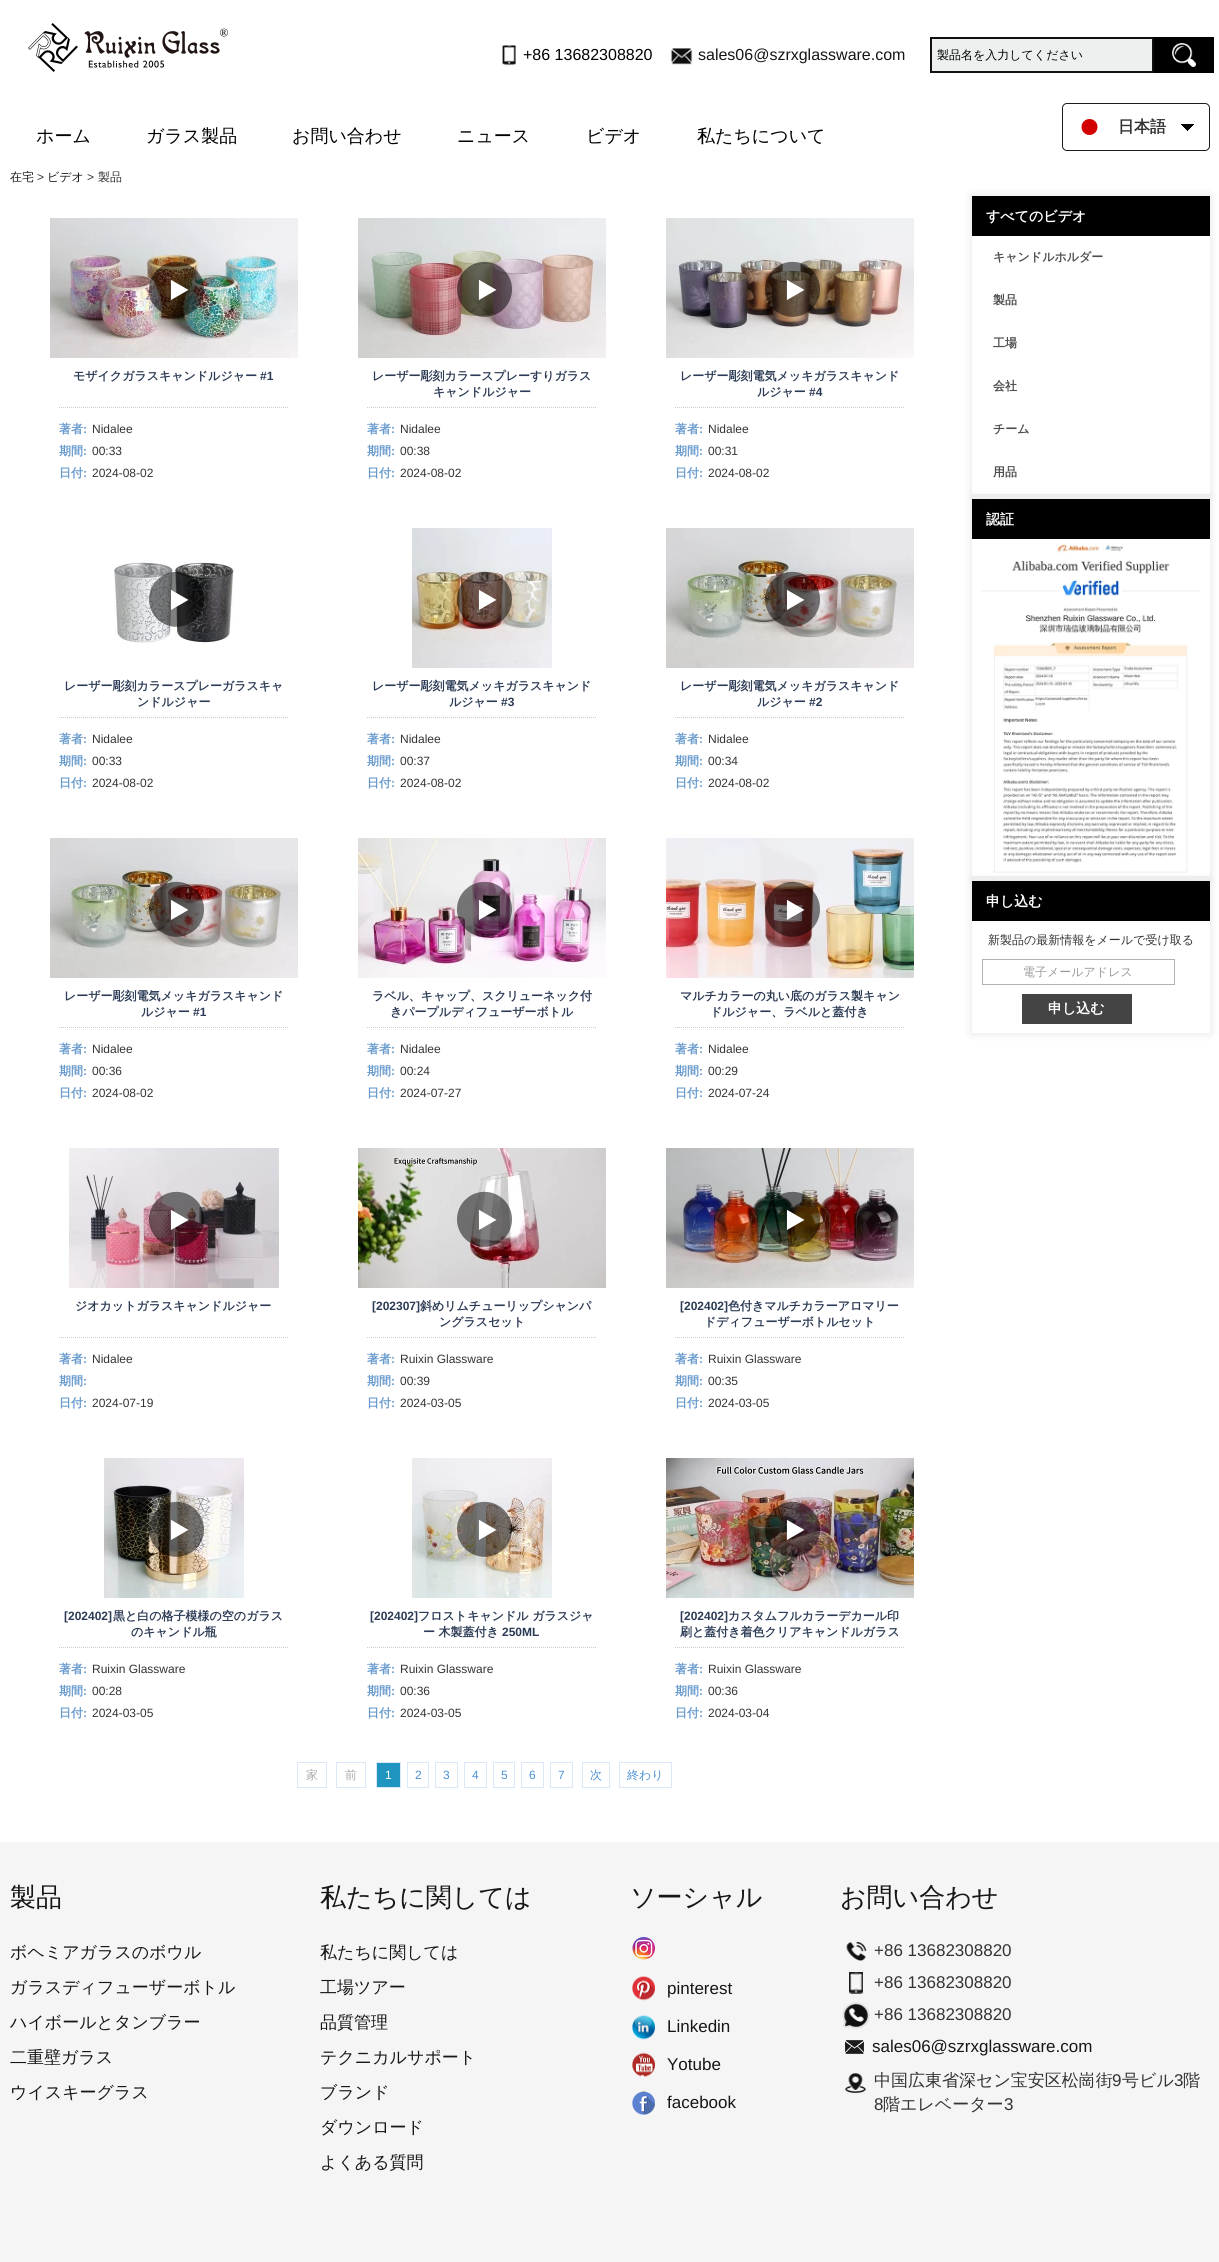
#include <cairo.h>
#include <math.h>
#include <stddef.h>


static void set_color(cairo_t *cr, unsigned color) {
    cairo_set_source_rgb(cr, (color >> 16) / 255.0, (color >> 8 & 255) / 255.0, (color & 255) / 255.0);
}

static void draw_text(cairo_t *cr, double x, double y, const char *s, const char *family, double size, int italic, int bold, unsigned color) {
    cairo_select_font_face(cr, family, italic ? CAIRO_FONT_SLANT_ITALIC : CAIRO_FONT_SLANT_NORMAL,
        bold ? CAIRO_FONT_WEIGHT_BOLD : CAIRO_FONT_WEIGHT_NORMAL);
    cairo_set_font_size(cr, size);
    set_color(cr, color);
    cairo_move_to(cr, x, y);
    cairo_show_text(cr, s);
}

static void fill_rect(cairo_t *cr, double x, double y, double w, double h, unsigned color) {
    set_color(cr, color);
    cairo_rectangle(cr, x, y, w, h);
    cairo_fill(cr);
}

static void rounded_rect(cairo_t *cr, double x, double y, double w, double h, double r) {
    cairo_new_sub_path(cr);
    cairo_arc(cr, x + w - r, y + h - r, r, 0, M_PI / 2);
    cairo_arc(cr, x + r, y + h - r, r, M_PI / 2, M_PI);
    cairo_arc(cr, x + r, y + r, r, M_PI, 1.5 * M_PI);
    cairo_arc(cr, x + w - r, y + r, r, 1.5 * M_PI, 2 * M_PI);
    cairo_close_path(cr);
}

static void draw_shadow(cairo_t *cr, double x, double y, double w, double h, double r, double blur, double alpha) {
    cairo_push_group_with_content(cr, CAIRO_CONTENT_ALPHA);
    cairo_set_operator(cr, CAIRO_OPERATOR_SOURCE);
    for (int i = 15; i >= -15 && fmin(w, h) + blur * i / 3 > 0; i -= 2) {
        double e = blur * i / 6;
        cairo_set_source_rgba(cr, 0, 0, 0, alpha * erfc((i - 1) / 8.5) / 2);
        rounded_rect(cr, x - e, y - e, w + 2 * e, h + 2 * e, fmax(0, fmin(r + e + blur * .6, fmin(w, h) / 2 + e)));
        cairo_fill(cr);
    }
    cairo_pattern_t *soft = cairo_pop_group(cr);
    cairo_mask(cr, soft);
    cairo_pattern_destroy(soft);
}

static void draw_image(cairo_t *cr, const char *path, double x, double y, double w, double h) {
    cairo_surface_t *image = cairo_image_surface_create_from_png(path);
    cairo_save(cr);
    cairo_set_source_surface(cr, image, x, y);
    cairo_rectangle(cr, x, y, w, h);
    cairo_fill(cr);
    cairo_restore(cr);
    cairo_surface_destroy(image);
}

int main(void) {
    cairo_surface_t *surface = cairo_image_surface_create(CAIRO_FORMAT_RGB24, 1219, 2262);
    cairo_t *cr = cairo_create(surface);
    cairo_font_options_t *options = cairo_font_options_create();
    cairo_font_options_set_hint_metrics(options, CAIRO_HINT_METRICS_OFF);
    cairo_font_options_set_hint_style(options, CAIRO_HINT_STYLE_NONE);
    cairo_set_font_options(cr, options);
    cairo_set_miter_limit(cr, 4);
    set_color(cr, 0xFFFFFF);
    cairo_paint(cr);
    draw_image(cr, "assets/img1.png", 28, 23, 200, 49);
    draw_image(cr, "assets/img2.png", 502, 45, 14, 21);
    draw_text(cr, 523, 60, "+86 13682308820", "Liberation Sans", 16, 0, 0, 0x000000);
    draw_image(cr, "assets/img3.png", 670, 48, 23, 17);
    draw_text(cr, 698, 60, "sales06@szrxglassware.com", "Liberation Sans", 16, 0, 0, 0x161616);
    set_color(cr, 0xEEF0F0);
    cairo_rectangle(cr, 931, 38, 222, 34);
    cairo_fill_preserve(cr);
    set_color(cr, 0x111111);
    cairo_stroke(cr);
    draw_text(cr, 937, 59, "製品名を入力してください", "WenQuanYi Zen Hei Medium", 12, 0, 0, 0x000000);
    fill_rect(cr, 1154, 37, 60, 36, 0x000000);
    draw_image(cr, "assets/img4.png", 1172, 43, 24, 24);
    draw_text(cr, 36, 142, "ホーム", "WenQuanYi Zen Hei Medium", 18, 0, 0, 0x000000);
    draw_text(cr, 146, 142, "ガラス製品", "WenQuanYi Zen Hei Medium", 18, 0, 0, 0x000000);
    draw_text(cr, 292, 142, "お問い合わせ", "WenQuanYi Zen Hei Medium", 18, 0, 0, 0x000000);
    draw_text(cr, 457, 142, "ニュース", "WenQuanYi Zen Hei Medium", 18, 0, 0, 0x000000);
    draw_text(cr, 586, 142, "ビデオ", "WenQuanYi Zen Hei Medium", 18, 0, 0, 0x000000);
    draw_text(cr, 697, 142, "私たちについて", "WenQuanYi Zen Hei Medium", 18, 0, 0, 0x000000);
    rounded_rect(cr, 1062.5, 103.5, 147, 47, 4.5);
    set_color(cr, 0x1B1B1B);
    cairo_set_line_width(cr, 1);
    cairo_stroke(cr);
    set_color(cr, 0xD30000);
    cairo_arc(cr, 1089.5, 127, 8, 0, 2 * M_PI);
    cairo_fill(cr);
    draw_text(cr, 1118, 132, "日本語", "WenQuanYi Zen Hei", 16, 0, 1, 0x333333);
    draw_image(cr, "assets/img5.png", 1181, 124, 13, 7);
    draw_text(cr, 10, 181, "在宅", "WenQuanYi Zen Hei Medium", 12, 0, 0, 0x161616);
    draw_text(cr, 37, 181, ">", "Liberation Sans", 12, 0, 0, 0x333333);
    draw_text(cr, 47, 181, "ビデオ", "WenQuanYi Zen Hei Medium", 12, 0, 0, 0x161616);
    draw_text(cr, 87, 181, ">", "Liberation Sans", 12, 0, 0, 0x333333);
    draw_text(cr, 98, 181, "製品", "WenQuanYi Zen Hei Medium", 12, 0, 0, 0x333333);
    draw_image(cr, "assets/img6.png", 50, 218, 248, 140);
    draw_image(cr, "assets/img7.png", 149, 261, 55, 56);
    cairo_new_path(cr);
    cairo_move_to(cr, 59, 407.5);
    cairo_line_to(cr, 289, 407.5);
    set_color(cr, 0xCCCCCC);
    cairo_set_dash(cr, (double[]){1, 1}, 2, 0);
    cairo_stroke(cr);
    draw_text(cr, 73, 380, "モザイクガラスキャンドルジャー", "WenQuanYi Zen Hei", 12, 0, 1, 0x2C3B55);
    draw_text(cr, 260, 380, "#1", "Liberation Sans", 12, 0, 1, 0x2C3B55);
    draw_text(cr, 59, 433, "著者", "WenQuanYi Zen Hei", 12, 0, 1, 0x6699CC);
    draw_text(cr, 83, 433, ":", "Liberation Sans", 12, 0, 1, 0x6699CC);
    draw_text(cr, 92, 433, "Nidalee", "Liberation Sans", 12, 0, 0, 0x333333);
    draw_text(cr, 59, 455, "期間", "WenQuanYi Zen Hei", 12, 0, 1, 0x6699CC);
    draw_text(cr, 83, 455, ":", "Liberation Sans", 12, 0, 1, 0x6699CC);
    draw_text(cr, 92, 455, "00:33", "Liberation Sans", 12, 0, 0, 0x333333);
    draw_text(cr, 59, 477, "日付", "WenQuanYi Zen Hei", 12, 0, 1, 0x6699CC);
    draw_text(cr, 83, 477, ":", "Liberation Sans", 12, 0, 1, 0x6699CC);
    draw_text(cr, 92, 477, "2024-08-02", "Liberation Sans", 12, 0, 0, 0x333333);
    draw_image(cr, "assets/img8.png", 358, 218, 248, 140);
    draw_image(cr, "assets/img9.png", 457, 261, 55, 56);
    cairo_new_path(cr);
    cairo_move_to(cr, 367, 407.5);
    cairo_line_to(cr, 597, 407.5);
    set_color(cr, 0xCCCCCC);
    cairo_stroke(cr);
    draw_text(cr, 372, 380, "レーザー彫刻カラースプレーすりガラス", "WenQuanYi Zen Hei", 12, 0, 1, 0x2C3B55);
    draw_text(cr, 433, 396, "キャンドルジャー", "WenQuanYi Zen Hei", 12, 0, 1, 0x2C3B55);
    draw_text(cr, 367, 433, "著者", "WenQuanYi Zen Hei", 12, 0, 1, 0x6699CC);
    draw_text(cr, 391, 433, ":", "Liberation Sans", 12, 0, 1, 0x6699CC);
    draw_text(cr, 400, 433, "Nidalee", "Liberation Sans", 12, 0, 0, 0x333333);
    draw_text(cr, 367, 455, "期間", "WenQuanYi Zen Hei", 12, 0, 1, 0x6699CC);
    draw_text(cr, 391, 455, ":", "Liberation Sans", 12, 0, 1, 0x6699CC);
    draw_text(cr, 400, 455, "00:38", "Liberation Sans", 12, 0, 0, 0x333333);
    draw_text(cr, 367, 477, "日付", "WenQuanYi Zen Hei", 12, 0, 1, 0x6699CC);
    draw_text(cr, 391, 477, ":", "Liberation Sans", 12, 0, 1, 0x6699CC);
    draw_text(cr, 400, 477, "2024-08-02", "Liberation Sans", 12, 0, 0, 0x333333);
    draw_image(cr, "assets/img10.png", 666, 218, 248, 140);
    draw_image(cr, "assets/img11.png", 765, 261, 55, 56);
    cairo_new_path(cr);
    cairo_move_to(cr, 675, 407.5);
    cairo_line_to(cr, 905, 407.5);
    set_color(cr, 0xCCCCCC);
    cairo_stroke(cr);
    draw_text(cr, 680, 380, "レーザー彫刻電気メッキガラスキャンド", "WenQuanYi Zen Hei", 12, 0, 1, 0x2C3B55);
    draw_text(cr, 757, 396, "ルジャー", "WenQuanYi Zen Hei", 12, 0, 1, 0x2C3B55);
    draw_text(cr, 809, 396, "#4", "Liberation Sans", 12, 0, 1, 0x2C3B55);
    draw_text(cr, 675, 433, "著者", "WenQuanYi Zen Hei", 12, 0, 1, 0x6699CC);
    draw_text(cr, 699, 433, ":", "Liberation Sans", 12, 0, 1, 0x6699CC);
    draw_text(cr, 708, 433, "Nidalee", "Liberation Sans", 12, 0, 0, 0x333333);
    draw_text(cr, 675, 455, "期間", "WenQuanYi Zen Hei", 12, 0, 1, 0x6699CC);
    draw_text(cr, 699, 455, ":", "Liberation Sans", 12, 0, 1, 0x6699CC);
    draw_text(cr, 708, 455, "00:31", "Liberation Sans", 12, 0, 0, 0x333333);
    draw_text(cr, 675, 477, "日付", "WenQuanYi Zen Hei", 12, 0, 1, 0x6699CC);
    draw_text(cr, 699, 477, ":", "Liberation Sans", 12, 0, 1, 0x6699CC);
    draw_text(cr, 708, 477, "2024-08-02", "Liberation Sans", 12, 0, 0, 0x333333);
    draw_image(cr, "assets/img12.png", 114, 560, 120, 87);
    draw_image(cr, "assets/img13.png", 149, 571, 55, 56);
    cairo_new_path(cr);
    cairo_move_to(cr, 59, 717.5);
    cairo_line_to(cr, 289, 717.5);
    set_color(cr, 0xCCCCCC);
    cairo_stroke(cr);
    draw_text(cr, 64, 690, "レーザー彫刻カラースプレーガラスキャ", "WenQuanYi Zen Hei", 12, 0, 1, 0x2C3B55);
    draw_text(cr, 137, 706, "ンドルジャー", "WenQuanYi Zen Hei", 12, 0, 1, 0x2C3B55);
    draw_text(cr, 59, 743, "著者", "WenQuanYi Zen Hei", 12, 0, 1, 0x6699CC);
    draw_text(cr, 83, 743, ":", "Liberation Sans", 12, 0, 1, 0x6699CC);
    draw_text(cr, 92, 743, "Nidalee", "Liberation Sans", 12, 0, 0, 0x333333);
    draw_text(cr, 59, 765, "期間", "WenQuanYi Zen Hei", 12, 0, 1, 0x6699CC);
    draw_text(cr, 83, 765, ":", "Liberation Sans", 12, 0, 1, 0x6699CC);
    draw_text(cr, 92, 765, "00:33", "Liberation Sans", 12, 0, 0, 0x333333);
    draw_text(cr, 59, 787, "日付", "WenQuanYi Zen Hei", 12, 0, 1, 0x6699CC);
    draw_text(cr, 83, 787, ":", "Liberation Sans", 12, 0, 1, 0x6699CC);
    draw_text(cr, 92, 787, "2024-08-02", "Liberation Sans", 12, 0, 0, 0x333333);
    draw_image(cr, "assets/img14.png", 411, 528, 141, 140);
    draw_image(cr, "assets/img15.png", 457, 571, 55, 56);
    cairo_new_path(cr);
    cairo_move_to(cr, 367, 717.5);
    cairo_line_to(cr, 597, 717.5);
    set_color(cr, 0xCCCCCC);
    cairo_stroke(cr);
    draw_text(cr, 372, 690, "レーザー彫刻電気メッキガラスキャンド", "WenQuanYi Zen Hei", 12, 0, 1, 0x2C3B55);
    draw_text(cr, 449, 706, "ルジャー", "WenQuanYi Zen Hei", 12, 0, 1, 0x2C3B55);
    draw_text(cr, 501, 706, "#3", "Liberation Sans", 12, 0, 1, 0x2C3B55);
    draw_text(cr, 367, 743, "著者", "WenQuanYi Zen Hei", 12, 0, 1, 0x6699CC);
    draw_text(cr, 391, 743, ":", "Liberation Sans", 12, 0, 1, 0x6699CC);
    draw_text(cr, 400, 743, "Nidalee", "Liberation Sans", 12, 0, 0, 0x333333);
    draw_text(cr, 367, 765, "期間", "WenQuanYi Zen Hei", 12, 0, 1, 0x6699CC);
    draw_text(cr, 391, 765, ":", "Liberation Sans", 12, 0, 1, 0x6699CC);
    draw_text(cr, 400, 765, "00:37", "Liberation Sans", 12, 0, 0, 0x333333);
    draw_text(cr, 367, 787, "日付", "WenQuanYi Zen Hei", 12, 0, 1, 0x6699CC);
    draw_text(cr, 391, 787, ":", "Liberation Sans", 12, 0, 1, 0x6699CC);
    draw_text(cr, 400, 787, "2024-08-02", "Liberation Sans", 12, 0, 0, 0x333333);
    draw_image(cr, "assets/img16.png", 666, 528, 248, 140);
    draw_image(cr, "assets/img17.png", 765, 571, 55, 56);
    cairo_new_path(cr);
    cairo_move_to(cr, 675, 717.5);
    cairo_line_to(cr, 905, 717.5);
    set_color(cr, 0xCCCCCC);
    cairo_stroke(cr);
    draw_text(cr, 680, 690, "レーザー彫刻電気メッキガラスキャンド", "WenQuanYi Zen Hei", 12, 0, 1, 0x2C3B55);
    draw_text(cr, 757, 706, "ルジャー", "WenQuanYi Zen Hei", 12, 0, 1, 0x2C3B55);
    draw_text(cr, 809, 706, "#2", "Liberation Sans", 12, 0, 1, 0x2C3B55);
    draw_text(cr, 675, 743, "著者", "WenQuanYi Zen Hei", 12, 0, 1, 0x6699CC);
    draw_text(cr, 699, 743, ":", "Liberation Sans", 12, 0, 1, 0x6699CC);
    draw_text(cr, 708, 743, "Nidalee", "Liberation Sans", 12, 0, 0, 0x333333);
    draw_text(cr, 675, 765, "期間", "WenQuanYi Zen Hei", 12, 0, 1, 0x6699CC);
    draw_text(cr, 699, 765, ":", "Liberation Sans", 12, 0, 1, 0x6699CC);
    draw_text(cr, 708, 765, "00:34", "Liberation Sans", 12, 0, 0, 0x333333);
    draw_text(cr, 675, 787, "日付", "WenQuanYi Zen Hei", 12, 0, 1, 0x6699CC);
    draw_text(cr, 699, 787, ":", "Liberation Sans", 12, 0, 1, 0x6699CC);
    draw_text(cr, 708, 787, "2024-08-02", "Liberation Sans", 12, 0, 0, 0x333333);
    draw_image(cr, "assets/img16.png", 50, 838, 248, 140);
    draw_image(cr, "assets/img17.png", 149, 881, 55, 56);
    cairo_new_path(cr);
    cairo_move_to(cr, 59, 1027.5);
    cairo_line_to(cr, 289, 1027.5);
    set_color(cr, 0xCCCCCC);
    cairo_stroke(cr);
    draw_text(cr, 64, 1000, "レーザー彫刻電気メッキガラスキャンド", "WenQuanYi Zen Hei", 12, 0, 1, 0x2C3B55);
    draw_text(cr, 141, 1016, "ルジャー", "WenQuanYi Zen Hei", 12, 0, 1, 0x2C3B55);
    draw_text(cr, 193, 1016, "#1", "Liberation Sans", 12, 0, 1, 0x2C3B55);
    draw_text(cr, 59, 1053, "著者", "WenQuanYi Zen Hei", 12, 0, 1, 0x6699CC);
    draw_text(cr, 83, 1053, ":", "Liberation Sans", 12, 0, 1, 0x6699CC);
    draw_text(cr, 92, 1053, "Nidalee", "Liberation Sans", 12, 0, 0, 0x333333);
    draw_text(cr, 59, 1075, "期間", "WenQuanYi Zen Hei", 12, 0, 1, 0x6699CC);
    draw_text(cr, 83, 1075, ":", "Liberation Sans", 12, 0, 1, 0x6699CC);
    draw_text(cr, 92, 1075, "00:36", "Liberation Sans", 12, 0, 0, 0x333333);
    draw_text(cr, 59, 1097, "日付", "WenQuanYi Zen Hei", 12, 0, 1, 0x6699CC);
    draw_text(cr, 83, 1097, ":", "Liberation Sans", 12, 0, 1, 0x6699CC);
    draw_text(cr, 92, 1097, "2024-08-02", "Liberation Sans", 12, 0, 0, 0x333333);
    draw_image(cr, "assets/img18.png", 358, 838, 248, 140);
    draw_image(cr, "assets/img19.png", 457, 881, 55, 56);
    cairo_new_path(cr);
    cairo_move_to(cr, 367, 1027.5);
    cairo_line_to(cr, 597, 1027.5);
    set_color(cr, 0xCCCCCC);
    cairo_stroke(cr);
    draw_text(cr, 372, 1000, "ラベル、キャップ、スクリューネック付", "WenQuanYi Zen Hei", 12, 0, 1, 0x2C3B55);
    draw_text(cr, 390, 1016, "きパープルディフューザーボトル", "WenQuanYi Zen Hei", 12, 0, 1, 0x2C3B55);
    draw_text(cr, 367, 1053, "著者", "WenQuanYi Zen Hei", 12, 0, 1, 0x6699CC);
    draw_text(cr, 391, 1053, ":", "Liberation Sans", 12, 0, 1, 0x6699CC);
    draw_text(cr, 400, 1053, "Nidalee", "Liberation Sans", 12, 0, 0, 0x333333);
    draw_text(cr, 367, 1075, "期間", "WenQuanYi Zen Hei", 12, 0, 1, 0x6699CC);
    draw_text(cr, 391, 1075, ":", "Liberation Sans", 12, 0, 1, 0x6699CC);
    draw_text(cr, 400, 1075, "00:24", "Liberation Sans", 12, 0, 0, 0x333333);
    draw_text(cr, 367, 1097, "日付", "WenQuanYi Zen Hei", 12, 0, 1, 0x6699CC);
    draw_text(cr, 391, 1097, ":", "Liberation Sans", 12, 0, 1, 0x6699CC);
    draw_text(cr, 400, 1097, "2024-07-27", "Liberation Sans", 12, 0, 0, 0x333333);
    draw_image(cr, "assets/img20.png", 666, 838, 248, 140);
    draw_image(cr, "assets/img21.png", 765, 881, 55, 56);
    cairo_new_path(cr);
    cairo_move_to(cr, 675, 1027.5);
    cairo_line_to(cr, 905, 1027.5);
    set_color(cr, 0xCCCCCC);
    cairo_stroke(cr);
    draw_text(cr, 680, 1000, "マルチカラーの丸い底のガラス製キャン", "WenQuanYi Zen Hei", 12, 0, 1, 0x2C3B55);
    draw_text(cr, 710, 1016, "ドルジャー、ラベルと蓋付き", "WenQuanYi Zen Hei", 12, 0, 1, 0x2C3B55);
    draw_text(cr, 675, 1053, "著者", "WenQuanYi Zen Hei", 12, 0, 1, 0x6699CC);
    draw_text(cr, 699, 1053, ":", "Liberation Sans", 12, 0, 1, 0x6699CC);
    draw_text(cr, 708, 1053, "Nidalee", "Liberation Sans", 12, 0, 0, 0x333333);
    draw_text(cr, 675, 1075, "期間", "WenQuanYi Zen Hei", 12, 0, 1, 0x6699CC);
    draw_text(cr, 699, 1075, ":", "Liberation Sans", 12, 0, 1, 0x6699CC);
    draw_text(cr, 708, 1075, "00:29", "Liberation Sans", 12, 0, 0, 0x333333);
    draw_text(cr, 675, 1097, "日付", "WenQuanYi Zen Hei", 12, 0, 1, 0x6699CC);
    draw_text(cr, 699, 1097, ":", "Liberation Sans", 12, 0, 1, 0x6699CC);
    draw_text(cr, 708, 1097, "2024-07-24", "Liberation Sans", 12, 0, 0, 0x333333);
    draw_image(cr, "assets/img22.png", 69, 1148, 210, 140);
    draw_image(cr, "assets/img23.png", 149, 1191, 55, 56);
    cairo_new_path(cr);
    cairo_move_to(cr, 59, 1337.5);
    cairo_line_to(cr, 289, 1337.5);
    set_color(cr, 0xCCCCCC);
    cairo_stroke(cr);
    draw_text(cr, 75, 1310, "ジオカットガラスキャンドルジャー", "WenQuanYi Zen Hei", 12, 0, 1, 0x2C3B55);
    draw_text(cr, 59, 1363, "著者", "WenQuanYi Zen Hei", 12, 0, 1, 0x6699CC);
    draw_text(cr, 83, 1363, ":", "Liberation Sans", 12, 0, 1, 0x6699CC);
    draw_text(cr, 92, 1363, "Nidalee", "Liberation Sans", 12, 0, 0, 0x333333);
    draw_text(cr, 59, 1385, "期間", "WenQuanYi Zen Hei", 12, 0, 1, 0x6699CC);
    draw_text(cr, 83, 1385, ":", "Liberation Sans", 12, 0, 1, 0x6699CC);
    draw_text(cr, 59, 1407, "日付", "WenQuanYi Zen Hei", 12, 0, 1, 0x6699CC);
    draw_text(cr, 83, 1407, ":", "Liberation Sans", 12, 0, 1, 0x6699CC);
    draw_text(cr, 92, 1407, "2024-07-19", "Liberation Sans", 12, 0, 0, 0x333333);
    draw_image(cr, "assets/img24.png", 358, 1148, 248, 140);
    draw_image(cr, "assets/img25.png", 457, 1191, 55, 56);
    cairo_new_path(cr);
    cairo_move_to(cr, 367, 1337.5);
    cairo_line_to(cr, 597, 1337.5);
    set_color(cr, 0xCCCCCC);
    cairo_stroke(cr);
    draw_text(cr, 372, 1310, "[202307]", "Liberation Sans", 12, 0, 1, 0x2C3B55);
    draw_text(cr, 420, 1310, "斜めリムチューリップシャンパ", "WenQuanYi Zen Hei", 12, 0, 1, 0x2C3B55);
    draw_text(cr, 439, 1326, "ングラスセット", "WenQuanYi Zen Hei", 12, 0, 1, 0x2C3B55);
    draw_text(cr, 367, 1363, "著者", "WenQuanYi Zen Hei", 12, 0, 1, 0x6699CC);
    draw_text(cr, 391, 1363, ":", "Liberation Sans", 12, 0, 1, 0x6699CC);
    draw_text(cr, 400, 1363, "Ruixin Glassware", "Liberation Sans", 12, 0, 0, 0x333333);
    draw_text(cr, 367, 1385, "期間", "WenQuanYi Zen Hei", 12, 0, 1, 0x6699CC);
    draw_text(cr, 391, 1385, ":", "Liberation Sans", 12, 0, 1, 0x6699CC);
    draw_text(cr, 400, 1385, "00:39", "Liberation Sans", 12, 0, 0, 0x333333);
    draw_text(cr, 367, 1407, "日付", "WenQuanYi Zen Hei", 12, 0, 1, 0x6699CC);
    draw_text(cr, 391, 1407, ":", "Liberation Sans", 12, 0, 1, 0x6699CC);
    draw_text(cr, 400, 1407, "2024-03-05", "Liberation Sans", 12, 0, 0, 0x333333);
    draw_image(cr, "assets/img26.png", 666, 1148, 248, 140);
    draw_image(cr, "assets/img27.png", 765, 1191, 55, 56);
    cairo_new_path(cr);
    cairo_move_to(cr, 675, 1337.5);
    cairo_line_to(cr, 905, 1337.5);
    set_color(cr, 0xCCCCCC);
    cairo_stroke(cr);
    draw_text(cr, 680, 1310, "[202402]", "Liberation Sans", 12, 0, 1, 0x2C3B55);
    draw_text(cr, 728, 1310, "色付きマルチカラーアロマリー", "WenQuanYi Zen Hei", 12, 0, 1, 0x2C3B55);
    draw_text(cr, 704, 1326, "ドディフューザーボトルセット", "WenQuanYi Zen Hei", 12, 0, 1, 0x2C3B55);
    draw_text(cr, 675, 1363, "著者", "WenQuanYi Zen Hei", 12, 0, 1, 0x6699CC);
    draw_text(cr, 699, 1363, ":", "Liberation Sans", 12, 0, 1, 0x6699CC);
    draw_text(cr, 708, 1363, "Ruixin Glassware", "Liberation Sans", 12, 0, 0, 0x333333);
    draw_text(cr, 675, 1385, "期間", "WenQuanYi Zen Hei", 12, 0, 1, 0x6699CC);
    draw_text(cr, 699, 1385, ":", "Liberation Sans", 12, 0, 1, 0x6699CC);
    draw_text(cr, 708, 1385, "00:35", "Liberation Sans", 12, 0, 0, 0x333333);
    draw_text(cr, 675, 1407, "日付", "WenQuanYi Zen Hei", 12, 0, 1, 0x6699CC);
    draw_text(cr, 699, 1407, ":", "Liberation Sans", 12, 0, 1, 0x6699CC);
    draw_text(cr, 708, 1407, "2024-03-05", "Liberation Sans", 12, 0, 0, 0x333333);
    draw_image(cr, "assets/img28.png", 104, 1458, 140, 140);
    draw_image(cr, "assets/img29.png", 149, 1501, 55, 56);
    cairo_new_path(cr);
    cairo_move_to(cr, 59, 1647.5);
    cairo_line_to(cr, 289, 1647.5);
    set_color(cr, 0xCCCCCC);
    cairo_stroke(cr);
    draw_text(cr, 64, 1620, "[202402]", "Liberation Sans", 12, 0, 1, 0x2C3B55);
    draw_text(cr, 113, 1620, "黒と白の格子模様の空のガラス", "WenQuanYi Zen Hei", 12, 0, 1, 0x2C3B55);
    draw_text(cr, 131, 1636, "のキャンドル瓶", "WenQuanYi Zen Hei", 12, 0, 1, 0x2C3B55);
    draw_text(cr, 59, 1673, "著者", "WenQuanYi Zen Hei", 12, 0, 1, 0x6699CC);
    draw_text(cr, 83, 1673, ":", "Liberation Sans", 12, 0, 1, 0x6699CC);
    draw_text(cr, 92, 1673, "Ruixin Glassware", "Liberation Sans", 12, 0, 0, 0x333333);
    draw_text(cr, 59, 1695, "期間", "WenQuanYi Zen Hei", 12, 0, 1, 0x6699CC);
    draw_text(cr, 83, 1695, ":", "Liberation Sans", 12, 0, 1, 0x6699CC);
    draw_text(cr, 92, 1695, "00:28", "Liberation Sans", 12, 0, 0, 0x333333);
    draw_text(cr, 59, 1717, "日付", "WenQuanYi Zen Hei", 12, 0, 1, 0x6699CC);
    draw_text(cr, 83, 1717, ":", "Liberation Sans", 12, 0, 1, 0x6699CC);
    draw_text(cr, 92, 1717, "2024-03-05", "Liberation Sans", 12, 0, 0, 0x333333);
    draw_image(cr, "assets/img30.png", 412, 1458, 140, 140);
    draw_image(cr, "assets/img31.png", 457, 1501, 55, 56);
    cairo_new_path(cr);
    cairo_move_to(cr, 367, 1647.5);
    cairo_line_to(cr, 597, 1647.5);
    set_color(cr, 0xCCCCCC);
    cairo_stroke(cr);
    draw_text(cr, 370, 1620, "[202402]", "Liberation Sans", 12, 0, 1, 0x2C3B55);
    draw_text(cr, 418, 1620, "フロストキャンドル ガラスジャ", "WenQuanYi Zen Hei", 12, 0, 1, 0x2C3B55);
    draw_text(cr, 423, 1636, "ー 木製蓋付き", "WenQuanYi Zen Hei", 12, 0, 1, 0x2C3B55);
    draw_text(cr, 502, 1636, "250ML", "Liberation Sans", 12, 0, 1, 0x2C3B55);
    draw_text(cr, 367, 1673, "著者", "WenQuanYi Zen Hei", 12, 0, 1, 0x6699CC);
    draw_text(cr, 391, 1673, ":", "Liberation Sans", 12, 0, 1, 0x6699CC);
    draw_text(cr, 400, 1673, "Ruixin Glassware", "Liberation Sans", 12, 0, 0, 0x333333);
    draw_text(cr, 367, 1695, "期間", "WenQuanYi Zen Hei", 12, 0, 1, 0x6699CC);
    draw_text(cr, 391, 1695, ":", "Liberation Sans", 12, 0, 1, 0x6699CC);
    draw_text(cr, 400, 1695, "00:36", "Liberation Sans", 12, 0, 0, 0x333333);
    draw_text(cr, 367, 1717, "日付", "WenQuanYi Zen Hei", 12, 0, 1, 0x6699CC);
    draw_text(cr, 391, 1717, ":", "Liberation Sans", 12, 0, 1, 0x6699CC);
    draw_text(cr, 400, 1717, "2024-03-05", "Liberation Sans", 12, 0, 0, 0x333333);
    draw_image(cr, "assets/img32.png", 666, 1458, 248, 140);
    draw_image(cr, "assets/img33.png", 765, 1501, 55, 56);
    cairo_new_path(cr);
    cairo_move_to(cr, 675, 1647.5);
    cairo_line_to(cr, 905, 1647.5);
    set_color(cr, 0xCCCCCC);
    cairo_stroke(cr);
    draw_text(cr, 680, 1620, "[202402]", "Liberation Sans", 12, 0, 1, 0x2C3B55);
    draw_text(cr, 728, 1620, "カスタムフルカラーデカール印", "WenQuanYi Zen Hei", 12, 0, 1, 0x2C3B55);
    draw_text(cr, 680, 1636, "刷と蓋付き着色クリアキャンドルガラス", "WenQuanYi Zen Hei", 12, 0, 1, 0x2C3B55);
    draw_text(cr, 675, 1673, "著者", "WenQuanYi Zen Hei", 12, 0, 1, 0x6699CC);
    draw_text(cr, 699, 1673, ":", "Liberation Sans", 12, 0, 1, 0x6699CC);
    draw_text(cr, 708, 1673, "Ruixin Glassware", "Liberation Sans", 12, 0, 0, 0x333333);
    draw_text(cr, 675, 1695, "期間", "WenQuanYi Zen Hei", 12, 0, 1, 0x6699CC);
    draw_text(cr, 699, 1695, ":", "Liberation Sans", 12, 0, 1, 0x6699CC);
    draw_text(cr, 708, 1695, "00:36", "Liberation Sans", 12, 0, 0, 0x333333);
    draw_text(cr, 675, 1717, "日付", "WenQuanYi Zen Hei", 12, 0, 1, 0x6699CC);
    draw_text(cr, 699, 1717, ":", "Liberation Sans", 12, 0, 1, 0x6699CC);
    draw_text(cr, 708, 1717, "2024-03-04", "Liberation Sans", 12, 0, 0, 0x333333);
    cairo_rectangle(cr, 297.5, 1762.5, 29, 25);
    set_color(cr, 0xDAE9F9);
    cairo_set_dash(cr, NULL, 0, 0);
    cairo_stroke(cr);
    draw_text(cr, 306, 1779, "家", "WenQuanYi Zen Hei Medium", 12, 0, 0, 0xAAAAAA);
    cairo_rectangle(cr, 336.5, 1762.5, 29, 25);
    set_color(cr, 0xDAE9F9);
    cairo_stroke(cr);
    draw_text(cr, 345, 1779, "前", "WenQuanYi Zen Hei Medium", 12, 0, 0, 0xAAAAAA);
    set_color(cr, 0x2095BF);
    cairo_rectangle(cr, 376.5, 1762.5, 24, 25);
    cairo_fill_preserve(cr);
    set_color(cr, 0xDAE9F9);
    cairo_stroke(cr);
    draw_text(cr, 385, 1779, "1", "Liberation Sans", 12, 0, 0, 0xFFFFFF);
    cairo_rectangle(cr, 407.5, 1762.5, 21, 25);
    set_color(cr, 0xDAE9F9);
    cairo_stroke(cr);
    draw_text(cr, 415, 1779, "2", "Liberation Sans", 12, 0, 0, 0x4B92D4);
    cairo_rectangle(cr, 435.5, 1762.5, 22, 25);
    set_color(cr, 0xDAE9F9);
    cairo_stroke(cr);
    draw_text(cr, 443, 1779, "3", "Liberation Sans", 12, 0, 0, 0x4B92D4);
    cairo_rectangle(cr, 464.5, 1762.5, 22, 25);
    set_color(cr, 0xDAE9F9);
    cairo_stroke(cr);
    draw_text(cr, 472, 1779, "4", "Liberation Sans", 12, 0, 0, 0x4B92D4);
    cairo_rectangle(cr, 493.5, 1762.5, 21, 25);
    set_color(cr, 0xDAE9F9);
    cairo_stroke(cr);
    draw_text(cr, 501, 1779, "5", "Liberation Sans", 12, 0, 0, 0x4B92D4);
    cairo_rectangle(cr, 521.5, 1762.5, 22, 25);
    set_color(cr, 0xDAE9F9);
    cairo_stroke(cr);
    draw_text(cr, 529, 1779, "6", "Liberation Sans", 12, 0, 0, 0x4B92D4);
    cairo_rectangle(cr, 550.5, 1762.5, 22, 25);
    set_color(cr, 0xDAE9F9);
    cairo_stroke(cr);
    draw_text(cr, 558, 1779, "7", "Liberation Sans", 12, 0, 0, 0x4B92D4);
    cairo_rectangle(cr, 582.5, 1762.5, 27, 25);
    set_color(cr, 0xDAE9F9);
    cairo_stroke(cr);
    draw_text(cr, 590, 1779, "次", "WenQuanYi Zen Hei Medium", 12, 0, 0, 0x4B92D4);
    cairo_rectangle(cr, 619.5, 1762.5, 52, 25);
    set_color(cr, 0xDAE9F9);
    cairo_stroke(cr);
    draw_text(cr, 627, 1779, "終わり", "WenQuanYi Zen Hei Medium", 12, 0, 0, 0x4B92D4);
    cairo_save(cr);
    cairo_set_fill_rule(cr, CAIRO_FILL_RULE_EVEN_ODD);
    cairo_new_path(cr);
    cairo_move_to(cr, 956, 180);
    cairo_line_to(cr, 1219, 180);
    cairo_line_to(cr, 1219, 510);
    cairo_line_to(cr, 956, 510);
    cairo_close_path(cr);
    cairo_move_to(cr, 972, 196);
    cairo_line_to(cr, 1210, 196);
    cairo_line_to(cr, 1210, 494);
    cairo_line_to(cr, 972, 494);
    cairo_close_path(cr);
    cairo_clip(cr);
    set_color(cr, 0x000000);
    draw_shadow(cr, 971, 195, 240, 300, 0, 4.5, 0.1);
    cairo_restore(cr);
    fill_rect(cr, 972, 196, 238, 40, 0x000000);
    draw_text(cr, 986, 221, "すべてのビデオ", "WenQuanYi Zen Hei", 14, 0, 1, 0xFFFFFF);
    draw_text(cr, 993, 261, "キャンドルホルダー", "WenQuanYi Zen Hei", 12, 0, 1, 0x4D4D4D);
    draw_text(cr, 993, 304, "製品", "WenQuanYi Zen Hei", 12, 0, 1, 0x4D4D4D);
    draw_text(cr, 993, 347, "工場", "WenQuanYi Zen Hei", 12, 0, 1, 0x4D4D4D);
    draw_text(cr, 993, 390, "会社", "WenQuanYi Zen Hei", 12, 0, 1, 0x4D4D4D);
    draw_text(cr, 993, 433, "チーム", "WenQuanYi Zen Hei", 12, 0, 1, 0x4D4D4D);
    draw_text(cr, 993, 476, "用品", "WenQuanYi Zen Hei", 12, 0, 1, 0x4D4D4D);
    cairo_save(cr);
    cairo_set_fill_rule(cr, CAIRO_FILL_RULE_EVEN_ODD);
    cairo_new_path(cr);
    cairo_move_to(cr, 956, 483);
    cairo_line_to(cr, 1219, 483);
    cairo_line_to(cr, 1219, 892);
    cairo_line_to(cr, 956, 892);
    cairo_close_path(cr);
    cairo_move_to(cr, 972, 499);
    cairo_line_to(cr, 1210, 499);
    cairo_line_to(cr, 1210, 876);
    cairo_line_to(cr, 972, 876);
    cairo_close_path(cr);
    cairo_clip(cr);
    set_color(cr, 0x000000);
    draw_shadow(cr, 971, 498, 240, 379, 0, 4.5, 0.1);
    cairo_restore(cr);
    fill_rect(cr, 972, 499, 238, 40, 0x000000);
    draw_text(cr, 986, 524, "認証", "WenQuanYi Zen Hei", 14, 0, 1, 0xFFFFFF);
    cairo_save(cr);
    cairo_set_fill_rule(cr, CAIRO_FILL_RULE_EVEN_ODD);
    cairo_new_path(cr);
    cairo_move_to(cr, 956, 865);
    cairo_line_to(cr, 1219, 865);
    cairo_line_to(cr, 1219, 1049);
    cairo_line_to(cr, 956, 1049);
    cairo_close_path(cr);
    cairo_move_to(cr, 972, 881);
    cairo_line_to(cr, 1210, 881);
    cairo_line_to(cr, 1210, 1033);
    cairo_line_to(cr, 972, 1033);
    cairo_close_path(cr);
    cairo_clip(cr);
    set_color(cr, 0x000000);
    draw_shadow(cr, 971, 880, 240, 154, 0, 4.5, 0.1);
    cairo_restore(cr);
    draw_image(cr, "assets/img34.png", 981, 544, 219, 329);
    fill_rect(cr, 972, 881, 238, 40, 0x000000);
    draw_text(cr, 986, 906, "申し込む", "WenQuanYi Zen Hei", 14, 0, 1, 0xFFFFFF);
    draw_text(cr, 988, 944, "新製品の最新情報をメールで受け取る", "WenQuanYi Zen Hei Medium", 12, 0, 0, 0x333333);
    cairo_rectangle(cr, 982.5, 959.5, 192, 25);
    set_color(cr, 0xB2B2B2);
    cairo_stroke(cr);
    draw_text(cr, 1023, 976, "電子メールアドレス", "WenQuanYi Zen Hei Medium", 12, 0, 0, 0x999999);
    fill_rect(cr, 1022, 994, 110, 30, 0x444444);
    draw_text(cr, 1048, 1013, "申し込む", "WenQuanYi Zen Hei", 14, 0, 1, 0xFFFFFF);
    fill_rect(cr, 0, 1842, 1219, 420, 0xF5F5F5);
    draw_text(cr, 10, 1906, "製品", "WenQuanYi Zen Hei Medium", 26, 0, 0, 0x161616);
    draw_text(cr, 10, 1958, "ボヘミアガラスのボウル", "WenQuanYi Zen Hei Medium", 17, 0, 0, 0x161616);
    draw_text(cr, 10, 1993, "ガラスディフューザーボトル", "WenQuanYi Zen Hei Medium", 17, 0, 0, 0x161616);
    draw_text(cr, 10, 2028, "ハイボールとタンブラー", "WenQuanYi Zen Hei Medium", 17, 0, 0, 0x161616);
    draw_text(cr, 10, 2063, "二重壁ガラス", "WenQuanYi Zen Hei Medium", 17, 0, 0, 0x161616);
    draw_text(cr, 10, 2098, "ウイスキーグラス", "WenQuanYi Zen Hei Medium", 17, 0, 0, 0x161616);
    draw_text(cr, 320, 1906, "私たちに関しては", "WenQuanYi Zen Hei Medium", 26, 0, 0, 0x161616);
    draw_text(cr, 320, 1958, "私たちに関しては", "WenQuanYi Zen Hei Medium", 17, 0, 0, 0x161616);
    draw_text(cr, 320, 1993, "工場ツアー", "WenQuanYi Zen Hei Medium", 17, 0, 0, 0x161616);
    draw_text(cr, 320, 2028, "品質管理", "WenQuanYi Zen Hei Medium", 17, 0, 0, 0x161616);
    draw_text(cr, 320, 2063, "テクニカルサポート", "WenQuanYi Zen Hei Medium", 17, 0, 0, 0x161616);
    draw_text(cr, 320, 2098, "ブランド", "WenQuanYi Zen Hei Medium", 17, 0, 0, 0x161616);
    draw_text(cr, 320, 2133, "ダウンロード", "WenQuanYi Zen Hei Medium", 17, 0, 0, 0x161616);
    draw_text(cr, 320, 2168, "よくある質問", "WenQuanYi Zen Hei Medium", 17, 0, 0, 0x161616);
    draw_text(cr, 630, 1906, "ソーシャル", "WenQuanYi Zen Hei Medium", 26, 0, 0, 0x161616);
    draw_image(cr, "assets/img35.png", 632, 1937, 23, 23);
    draw_image(cr, "assets/img36.png", 632, 1976, 23, 25);
    draw_text(cr, 667, 1994, "pinterest", "Liberation Sans", 17, 0, 0, 0x161616);
    draw_image(cr, "assets/img37.png", 632, 2015, 23, 25);
    draw_text(cr, 667, 2032, "Linkedin", "Liberation Sans", 17, 0, 0, 0x161616);
    draw_image(cr, "assets/img38.png", 632, 2052, 23, 25);
    draw_text(cr, 667, 2070, "Yotube", "Liberation Sans", 17, 0, 0, 0x161616);
    draw_image(cr, "assets/img39.png", 632, 2091, 23, 24);
    draw_text(cr, 667, 2108, "facebook", "Liberation Sans", 17, 0, 0, 0x161616);
    draw_text(cr, 840, 1906, "お問い合わせ", "WenQuanYi Zen Hei Medium", 26, 0, 0, 0x161616);
    draw_image(cr, "assets/img40.png", 846, 1942, 21, 19);
    draw_text(cr, 874, 1956, "+86 13682308820", "Liberation Sans", 17, 0, 0, 0x333333);
    draw_image(cr, "assets/img41.png", 849, 1972, 14, 22);
    draw_text(cr, 874, 1988, "+86 13682308820", "Liberation Sans", 17, 0, 0, 0x333333);
    draw_image(cr, "assets/img42.png", 842, 2002, 28, 27);
    draw_text(cr, 874, 2020, "+86 13682308820", "Liberation Sans", 17, 0, 0, 0x333333);
    draw_image(cr, "assets/img43.png", 845, 2040, 19, 14);
    draw_text(cr, 872, 2052, "sales06@szrxglassware.com", "Liberation Sans", 17, 0, 0, 0x161616);
    draw_image(cr, "assets/img44.png", 845, 2073, 21, 20);
    draw_text(cr, 874, 2086, "中国広東省深セン宝安区松崗街", "WenQuanYi Zen Hei Medium", 17, 0, 0, 0x333333);
    draw_text(cr, 1112, 2086, "9", "Liberation Sans", 17, 0, 0, 0x333333);
    draw_text(cr, 1122, 2086, "号ビル", "WenQuanYi Zen Hei Medium", 17, 0, 0, 0x333333);
    draw_text(cr, 1174, 2086, "3", "Liberation Sans", 17, 0, 0, 0x333333);
    draw_text(cr, 1183, 2086, "階", "WenQuanYi Zen Hei Medium", 17, 0, 0, 0x333333);
    draw_text(cr, 874, 2110, "8", "Liberation Sans", 17, 0, 0, 0x333333);
    draw_text(cr, 883, 2110, "階エレベーター", "WenQuanYi Zen Hei Medium", 17, 0, 0, 0x333333);
    draw_text(cr, 1004, 2110, "3", "Liberation Sans", 17, 0, 0, 0x333333);
    cairo_surface_write_to_png(surface, "output.png");
    cairo_font_options_destroy(options);
    cairo_destroy(cr);
    cairo_surface_destroy(surface);
    return 0;
}
